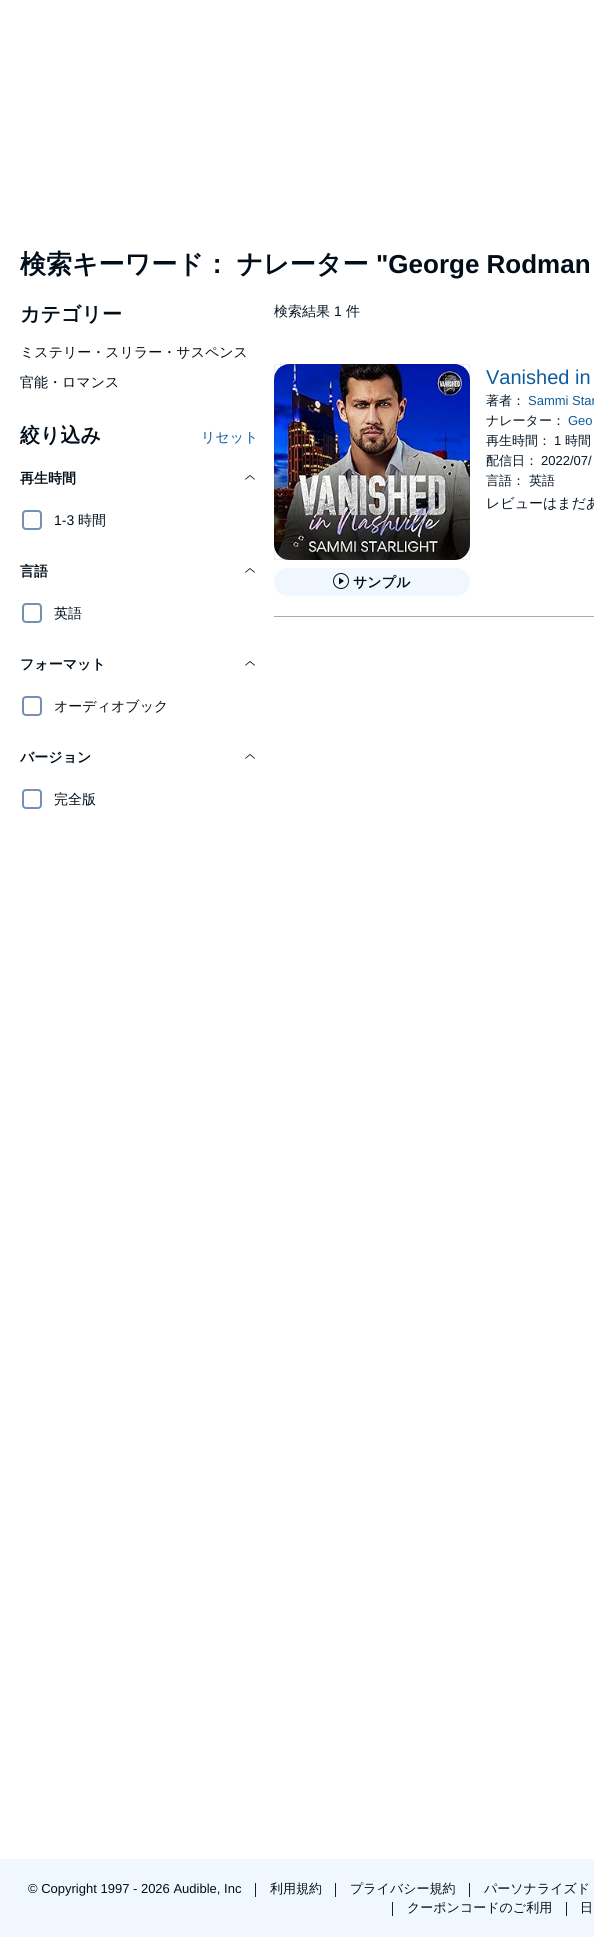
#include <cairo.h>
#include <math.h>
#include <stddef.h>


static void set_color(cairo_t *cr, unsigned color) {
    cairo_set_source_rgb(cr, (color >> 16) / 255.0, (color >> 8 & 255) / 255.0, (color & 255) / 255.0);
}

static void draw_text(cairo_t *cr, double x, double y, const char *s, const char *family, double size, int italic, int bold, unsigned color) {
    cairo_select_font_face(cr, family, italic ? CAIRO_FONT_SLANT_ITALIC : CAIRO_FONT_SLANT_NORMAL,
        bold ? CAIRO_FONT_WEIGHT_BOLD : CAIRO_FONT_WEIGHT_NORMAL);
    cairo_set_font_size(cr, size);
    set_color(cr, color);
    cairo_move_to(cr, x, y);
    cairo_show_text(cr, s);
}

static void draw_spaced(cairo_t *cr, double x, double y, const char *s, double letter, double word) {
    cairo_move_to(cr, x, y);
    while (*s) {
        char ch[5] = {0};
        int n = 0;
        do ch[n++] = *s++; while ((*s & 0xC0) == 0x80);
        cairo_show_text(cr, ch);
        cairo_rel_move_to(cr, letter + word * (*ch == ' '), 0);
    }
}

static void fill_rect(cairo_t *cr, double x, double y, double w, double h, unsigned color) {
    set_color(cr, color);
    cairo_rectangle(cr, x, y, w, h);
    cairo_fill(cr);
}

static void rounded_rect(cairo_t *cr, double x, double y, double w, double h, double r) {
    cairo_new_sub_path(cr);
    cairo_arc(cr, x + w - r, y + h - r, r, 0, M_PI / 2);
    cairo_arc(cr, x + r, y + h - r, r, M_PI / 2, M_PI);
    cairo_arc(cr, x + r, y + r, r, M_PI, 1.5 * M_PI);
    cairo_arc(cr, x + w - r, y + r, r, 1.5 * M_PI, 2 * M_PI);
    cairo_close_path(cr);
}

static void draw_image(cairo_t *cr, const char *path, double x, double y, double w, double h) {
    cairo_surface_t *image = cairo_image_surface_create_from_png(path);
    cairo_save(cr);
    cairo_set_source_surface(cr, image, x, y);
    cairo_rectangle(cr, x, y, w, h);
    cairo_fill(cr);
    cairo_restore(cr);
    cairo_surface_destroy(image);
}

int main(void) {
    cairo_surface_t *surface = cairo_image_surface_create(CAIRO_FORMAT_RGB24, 594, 1937);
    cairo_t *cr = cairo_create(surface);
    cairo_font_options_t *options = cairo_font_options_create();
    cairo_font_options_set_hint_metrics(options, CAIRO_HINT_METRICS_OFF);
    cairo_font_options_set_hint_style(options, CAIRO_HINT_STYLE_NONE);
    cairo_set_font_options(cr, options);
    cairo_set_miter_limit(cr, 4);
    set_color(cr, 0xFFFFFF);
    cairo_paint(cr);
    cairo_select_font_face(cr, "WenQuanYi Zen Hei", CAIRO_FONT_SLANT_NORMAL, CAIRO_FONT_WEIGHT_BOLD);
    cairo_set_font_size(cr, 26);
    set_color(cr, 0x010E19);
    draw_spaced(cr, 20, 273, "検索キーワード： ナレーター", 0, -1);
    draw_text(cr, 376, 273, "\"George Rodman", "Liberation Sans", 26, 0, 1, 0x010E19);
    draw_text(cr, 20, 321, "カテゴリー", "WenQuanYi Zen Hei", 20, 0, 1, 0x010E19);
    draw_text(cr, 20, 357, "ミステリー・スリラー・サスペンス", "WenQuanYi Zen Hei Medium", 14, 0, 0, 0x010E19);
    draw_text(cr, 20, 387, "官能・ロマンス", "WenQuanYi Zen Hei Medium", 14, 0, 0, 0x010E19);
    draw_text(cr, 20, 442, "絞り込み", "WenQuanYi Zen Hei", 20, 0, 1, 0x010E19);
    draw_text(cr, 201, 442, "リセット", "WenQuanYi Zen Hei Medium", 14, 0, 0, 0x0E5B9B);
    draw_text(cr, 20, 483, "再生時間", "WenQuanYi Zen Hei", 14, 0, 1, 0x010E19);
    draw_image(cr, "assets/img1.png", 245, 475, 10, 5);
    rounded_rect(cr, 23, 511, 18, 18, 3);
    set_color(cr, 0x7690B2);
    cairo_stroke(cr);
    draw_text(cr, 54, 525, "1-3", "Liberation Sans", 14, 0, 0, 0x010E19);
    draw_text(cr, 78, 525, "時間", "WenQuanYi Zen Hei Medium", 14, 0, 0, 0x010E19);
    draw_text(cr, 20, 576, "言語", "WenQuanYi Zen Hei", 14, 0, 1, 0x010E19);
    draw_image(cr, "assets/img1.png", 245, 568, 10, 5);
    rounded_rect(cr, 23, 604, 18, 18, 3);
    set_color(cr, 0x7690B2);
    cairo_stroke(cr);
    draw_text(cr, 54, 618, "英語", "WenQuanYi Zen Hei Medium", 14, 0, 0, 0x010E19);
    draw_text(cr, 20, 669, "フォーマット", "WenQuanYi Zen Hei", 14, 0, 1, 0x010E19);
    draw_image(cr, "assets/img1.png", 245, 661, 10, 5);
    rounded_rect(cr, 23, 697, 18, 18, 3);
    set_color(cr, 0x7690B2);
    cairo_stroke(cr);
    draw_text(cr, 54, 711, "オーディオブック", "WenQuanYi Zen Hei Medium", 14, 0, 0, 0x010E19);
    draw_text(cr, 20, 762, "バージョン", "WenQuanYi Zen Hei", 14, 0, 1, 0x010E19);
    draw_image(cr, "assets/img1.png", 245, 754, 10, 5);
    rounded_rect(cr, 23, 790, 18, 18, 3);
    set_color(cr, 0x7690B2);
    cairo_stroke(cr);
    draw_text(cr, 54, 804, "完全版", "WenQuanYi Zen Hei Medium", 14, 0, 0, 0x010E19);
    draw_text(cr, 274, 316, "検索結果", "WenQuanYi Zen Hei Medium", 14, 0, 0, 0x061624);
    draw_text(cr, 334, 316, "1", "Liberation Sans", 14, 0, 0, 0x061624);
    draw_text(cr, 346, 316, "件", "WenQuanYi Zen Hei Medium", 14, 0, 0, 0x061624);
    draw_text(cr, 486, 384, "Vanished in", "Liberation Sans", 20, 0, 0, 0x0E5B9B);
    draw_text(cr, 486, 405, "著者：", "WenQuanYi Zen Hei Medium", 13, 0, 0, 0x061624);
    draw_text(cr, 528, 405, "Sammi Star", "Liberation Sans", 13, 0, 0, 0x0E5B9B);
    draw_text(cr, 486, 425, "ナレーター：", "WenQuanYi Zen Hei Medium", 13, 0, 0, 0x061624);
    draw_text(cr, 568, 425, "Geo", "Liberation Sans", 13, 0, 0, 0x0E5B9B);
    draw_text(cr, 486, 445, "再生時間：", "WenQuanYi Zen Hei Medium", 13, 0, 0, 0x061624);
    draw_text(cr, 554, 445, "1", "Liberation Sans", 13, 0, 0, 0x061624);
    draw_text(cr, 565, 445, "時間", "WenQuanYi Zen Hei Medium", 13, 0, 0, 0x061624);
    draw_text(cr, 486, 465, "配信日：", "WenQuanYi Zen Hei Medium", 13, 0, 0, 0x061624);
    draw_text(cr, 541, 465, "2022/07/", "Liberation Sans", 13, 0, 0, 0x061624);
    draw_text(cr, 486, 485, "言語： 英語", "WenQuanYi Zen Hei Medium", 13, 0, 0, 0x061624);
    draw_text(cr, 486, 508, "レビューはまだあ", "WenQuanYi Zen Hei Medium", 14, 0, 0, 0x061624);
    draw_image(cr, "assets/img2.png", 274, 364, 196, 196);
    cairo_rectangle(cr, 274.5, 364.5, 195, 195);
    cairo_set_source_rgba(cr, 0.129, 0.137, 0.145, 0.08);
    cairo_set_line_width(cr, 1);
    cairo_stroke(cr);
    set_color(cr, 0xF1F7FE);
    rounded_rect(cr, 274, 568, 196, 28, 14);
    cairo_fill(cr);
    draw_image(cr, "assets/img3.png", 333, 573, 16, 16);
    draw_text(cr, 353, 587, "サンプル", "WenQuanYi Zen Hei", 14, 0, 1, 0x010E19);
    fill_rect(cr, 274, 616, 320, 1, 0xA6ABAF);
    fill_rect(cr, 0, 1859, 594, 78, 0xF1F7FE);
    draw_text(cr, 28, 1893, "© Copyright 1997 - 2026 Audible, Inc", "Liberation Sans", 13, 0, 0, 0x010E19);
    fill_rect(cr, 255, 1883, 1, 14, 0x112235);
    draw_text(cr, 270, 1893, "利用規約", "WenQuanYi Zen Hei Medium", 13, 0, 0, 0x010E19);
    fill_rect(cr, 335, 1883, 1, 14, 0x112235);
    draw_text(cr, 350, 1893, "プライバシー規約", "WenQuanYi Zen Hei Medium", 13, 0, 0, 0x010E19);
    fill_rect(cr, 469, 1883, 1, 14, 0x112235);
    draw_text(cr, 484, 1893, "パーソナライズド", "WenQuanYi Zen Hei Medium", 13, 0, 0, 0x010E19);
    fill_rect(cr, 392, 1902, 1, 14, 0x112235);
    draw_text(cr, 407, 1912, "クーポンコードのご利用", "WenQuanYi Zen Hei Medium", 13, 0, 0, 0x010E19);
    fill_rect(cr, 566, 1902, 1, 14, 0x112235);
    draw_text(cr, 580, 1912, "日", "WenQuanYi Zen Hei Medium", 13, 0, 0, 0x010E19);
    cairo_surface_write_to_png(surface, "output.png");
    cairo_font_options_destroy(options);
    cairo_destroy(cr);
    cairo_surface_destroy(surface);
    return 0;
}
